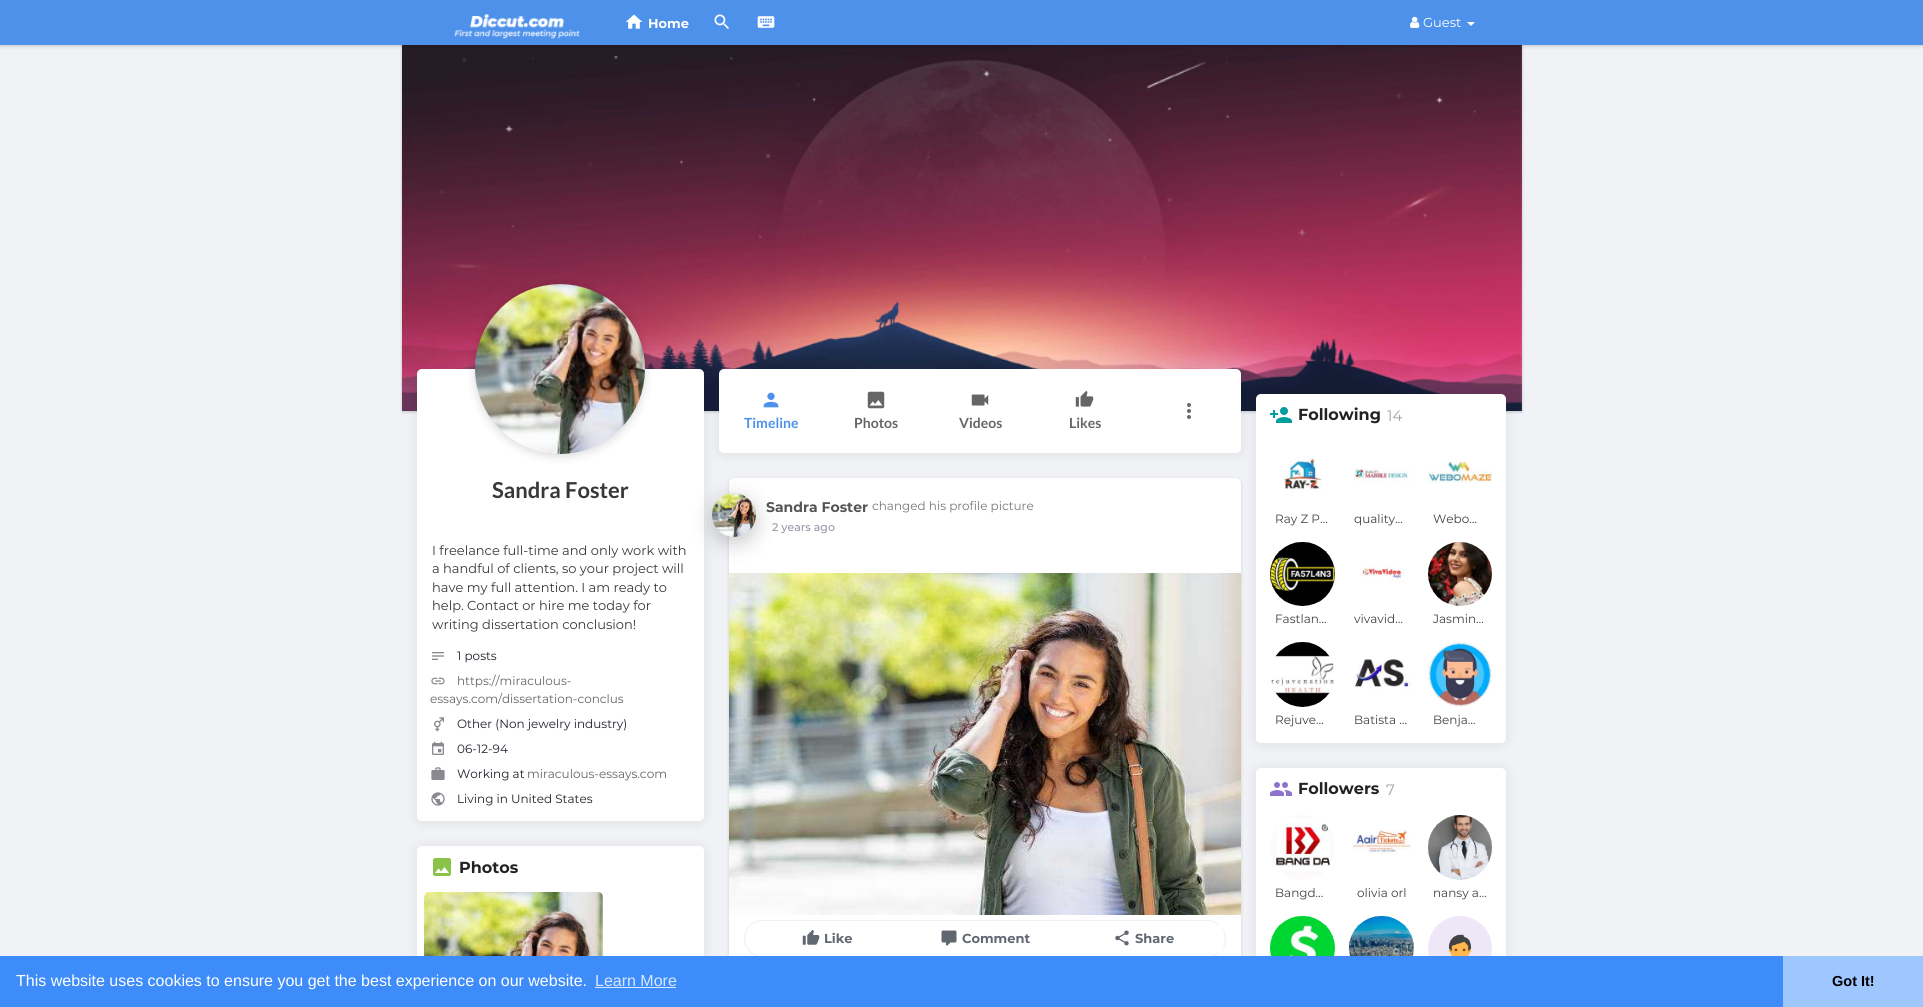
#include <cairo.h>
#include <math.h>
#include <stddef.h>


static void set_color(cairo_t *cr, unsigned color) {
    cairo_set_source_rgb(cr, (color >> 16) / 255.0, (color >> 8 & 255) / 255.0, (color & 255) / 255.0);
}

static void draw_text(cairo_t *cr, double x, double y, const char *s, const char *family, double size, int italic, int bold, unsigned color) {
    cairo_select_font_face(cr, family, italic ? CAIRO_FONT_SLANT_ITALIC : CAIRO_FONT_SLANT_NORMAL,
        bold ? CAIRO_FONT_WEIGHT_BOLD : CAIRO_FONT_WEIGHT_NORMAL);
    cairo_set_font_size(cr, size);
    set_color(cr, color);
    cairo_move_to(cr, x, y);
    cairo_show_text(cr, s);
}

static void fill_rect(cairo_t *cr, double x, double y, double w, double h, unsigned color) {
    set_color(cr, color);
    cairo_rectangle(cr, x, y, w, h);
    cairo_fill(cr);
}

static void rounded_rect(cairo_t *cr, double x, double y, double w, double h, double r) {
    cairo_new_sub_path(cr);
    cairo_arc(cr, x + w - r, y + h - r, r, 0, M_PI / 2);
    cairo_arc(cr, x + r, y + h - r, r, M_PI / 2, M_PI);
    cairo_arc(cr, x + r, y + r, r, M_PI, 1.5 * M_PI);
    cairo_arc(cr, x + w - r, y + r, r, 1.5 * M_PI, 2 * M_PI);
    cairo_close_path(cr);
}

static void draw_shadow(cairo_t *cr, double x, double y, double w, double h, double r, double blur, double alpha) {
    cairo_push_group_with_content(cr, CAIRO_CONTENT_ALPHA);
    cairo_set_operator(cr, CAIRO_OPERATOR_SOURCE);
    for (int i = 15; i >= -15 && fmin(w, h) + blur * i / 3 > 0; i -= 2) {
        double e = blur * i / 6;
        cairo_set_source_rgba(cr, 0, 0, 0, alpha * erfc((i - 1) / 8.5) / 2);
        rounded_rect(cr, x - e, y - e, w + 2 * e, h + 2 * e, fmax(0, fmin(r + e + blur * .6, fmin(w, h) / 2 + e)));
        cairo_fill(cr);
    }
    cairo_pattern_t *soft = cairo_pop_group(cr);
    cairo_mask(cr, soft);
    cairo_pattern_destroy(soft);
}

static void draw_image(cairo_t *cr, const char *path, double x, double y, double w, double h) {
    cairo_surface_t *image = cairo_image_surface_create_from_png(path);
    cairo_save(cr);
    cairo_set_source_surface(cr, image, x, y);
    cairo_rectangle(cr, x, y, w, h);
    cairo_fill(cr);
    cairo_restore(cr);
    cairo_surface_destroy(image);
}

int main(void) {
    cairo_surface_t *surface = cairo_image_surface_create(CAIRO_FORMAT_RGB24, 1923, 1007);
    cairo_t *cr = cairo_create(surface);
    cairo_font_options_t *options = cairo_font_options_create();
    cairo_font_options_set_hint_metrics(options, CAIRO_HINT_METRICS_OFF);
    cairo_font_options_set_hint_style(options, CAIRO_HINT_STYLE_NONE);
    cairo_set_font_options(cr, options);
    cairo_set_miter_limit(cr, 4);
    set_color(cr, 0xF0F2F5);
    cairo_paint(cr);
    set_color(cr, 0x000000);
    draw_shadow(cr, 402, 46, 1120, 366, 0, 1.5, 0.2);
    draw_image(cr, "assets/img6.png", 402, 45, 1120, 366);
    draw_shadow(cr, 0, 1, 1923, 45, 0, 2, 0.2);
    fill_rect(cr, 0, 0, 1923, 45, 0x4D91EA);
    draw_image(cr, "assets/img1.png", 454, 14, 126, 25);
    draw_image(cr, "assets/img2.png", 625, 14, 18, 15);
    draw_text(cr, 648, 28, "Home", "Montserrat", 13, 0, 1, 0xFFFFFF);
    draw_image(cr, "assets/img3.png", 714, 14, 15, 15);
    draw_image(cr, "assets/img4.png", 757, 16, 18, 12);
    draw_image(cr, "assets/img5.png", 1410, 16, 10, 12);
    draw_text(cr, 1423, 27, "Guest", "Montserrat", 13, 0, 0, 0xFFFFFF);
    cairo_new_path(cr);
    cairo_move_to(cr, 1467, 22);
    cairo_line_to(cr, 1475, 22);
    cairo_line_to(cr, 1471, 26);
    cairo_close_path(cr);
    cairo_fill(cr);
    set_color(cr, 0x000000);
    draw_shadow(cr, 417, 370, 287, 452, 5, 6.5, 0.08);
    set_color(cr, 0xFFFFFF);
    rounded_rect(cr, 417, 369, 287, 452, 5);
    cairo_fill(cr);
    set_color(cr, 0x000000);
    draw_shadow(cr, 475, 286, 170, 170, 85, 5, 0.15);
    draw_image(cr, "assets/img7.png", 475, 284, 170, 170);
    draw_text(cr, 492, 498, "Sandra Foster", "Lato", 22, 0, 1, 0x383838);
    draw_text(cr, 432, 555, "I freelance full-time and only work with", "Montserrat", 13, 0, 0, 0x383838);
    draw_text(cr, 432, 573, "a handful of clients, so your project will", "Montserrat", 13, 0, 0, 0x383838);
    draw_text(cr, 432, 592, "have my full attention. I am ready to", "Montserrat", 13, 0, 0, 0x383838);
    draw_text(cr, 432, 610, "help. Contact or hire me today for", "Montserrat", 13, 0, 0, 0x383838);
    draw_text(cr, 432, 629, "writing dissertation conclusion!", "Montserrat", 13, 0, 0, 0x383838);
    draw_image(cr, "assets/img8.png", 432, 652, 12, 8);
    draw_text(cr, 457, 660, "1 posts", "Montserrat", 12, 0, 0, 0x1D2129);
    draw_image(cr, "assets/img9.png", 431, 677, 14, 8);
    draw_text(cr, 457, 685, "https://miraculous-", "Montserrat", 12, 0, 0, 0x666666);
    draw_text(cr, 430, 703, "essays.com/dissertation-conclus", "Montserrat", 12, 0, 0, 0x666666);
    draw_image(cr, "assets/img10.png", 434, 717, 10, 15);
    draw_text(cr, 457, 728, "Other (Non jewelry industry)", "Montserrat", 12, 0, 0, 0x1D2129);
    draw_image(cr, "assets/img11.png", 432, 741, 12, 14);
    draw_text(cr, 457, 753, "06-12-94", "Montserrat", 12, 0, 0, 0x1D2129);
    draw_image(cr, "assets/img12.png", 431, 767, 14, 13);
    draw_text(cr, 457, 778, "Working at", "Montserrat", 12, 0, 0, 0x1D2129);
    draw_text(cr, 527, 778, "miraculous-essays.com", "Montserrat", 12, 0, 0, 0x666666);
    draw_image(cr, "assets/img13.png", 431, 792, 14, 14);
    draw_text(cr, 457, 803, "Living in United States", "Montserrat", 12, 0, 0, 0x1D2129);
    set_color(cr, 0x000000);
    draw_shadow(cr, 417, 847, 287, 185, 5, 6.5, 0.08);
    set_color(cr, 0xFFFFFF);
    rounded_rect(cr, 417, 846, 287, 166, 5);
    cairo_fill(cr);
    draw_image(cr, "assets/img14.png", 433, 858, 18, 18);
    draw_text(cr, 459, 873, "Photos", "Montserrat", 16, 0, 1, 0x222222);
    draw_image(cr, "assets/img15.png", 424, 892, 179, 64);
    set_color(cr, 0x000000);
    draw_shadow(cr, 719, 370, 522, 84, 5, 6.5, 0.08);
    set_color(cr, 0xFFFFFF);
    rounded_rect(cr, 719, 369, 522, 84, 5);
    cairo_fill(cr);
    draw_image(cr, "assets/img16.png", 1187, 403, 4, 16);
    draw_image(cr, "assets/img17.png", 763, 392, 16, 16);
    draw_text(cr, 744, 428, "Timeline", "Lato", 14, 0, 1, 0x4D91EA);
    draw_image(cr, "assets/img18.png", 867, 391, 18, 18);
    draw_text(cr, 854, 428, "Photos", "Lato", 14, 0, 1, 0x666666);
    draw_image(cr, "assets/img19.png", 971, 394, 18, 12);
    draw_text(cr, 959, 428, "Videos", "Lato", 14, 0, 1, 0x666666);
    draw_image(cr, "assets/img20.png", 1075, 390, 19, 17);
    draw_text(cr, 1069, 428, "Likes", "Lato", 14, 0, 1, 0x666666);
    set_color(cr, 0x000000);
    draw_shadow(cr, 729, 479, 512, 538, 5, 1.5, 0.15);
    set_color(cr, 0xFFFFFF);
    rounded_rect(cr, 729, 478, 512, 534, 5);
    cairo_fill(cr);
    set_color(cr, 0x000000);
    draw_shadow(cr, 712, 499, 44, 44, 22, 10, 0.2);
    draw_image(cr, "assets/img21.png", 712, 493, 44, 44);
    draw_text(cr, 766, 512, "Sandra Foster", "Montserrat", 14, 0, 1, 0x555555);
    draw_text(cr, 872, 510, "changed his profile picture", "Montserrat", 12, 0, 0, 0x777777);
    draw_text(cr, 772, 531, "2 years ago", "Montserrat Medium", 11, 0, 0, 0x9197A3);
    draw_image(cr, "assets/img22.png", 729, 573, 512, 342);
    rounded_rect(cr, 744.5, 920.5, 481, 36, 18);
    set_color(cr, 0xEFEFEF);
    cairo_set_line_width(cr, 1);
    cairo_stroke(cr);
    draw_image(cr, "assets/img23.png", 802, 929, 18, 16);
    draw_text(cr, 824, 943, "Like", "Montserrat", 13, 0, 1, 0x616770);
    draw_image(cr, "assets/img24.png", 941, 930, 16, 16);
    draw_text(cr, 962, 943, "Comment", "Montserrat", 13, 0, 1, 0x616770);
    set_color(cr, 0xFFFFFF);
    rounded_rect(cr, 1064, 924, 159, 29, 2);
    cairo_fill(cr);
    draw_image(cr, "assets/img25.png", 1115, 930, 14, 16);
    draw_text(cr, 1135, 943, "Share", "Montserrat", 13, 0, 1, 0x616770);
    set_color(cr, 0x000000);
    draw_shadow(cr, 1256, 395, 250, 349, 5, 6.5, 0.08);
    set_color(cr, 0xFFFFFF);
    rounded_rect(cr, 1256, 394, 250, 349, 5);
    cairo_fill(cr);
    draw_image(cr, "assets/img26.png", 1270, 407, 22, 16);
    draw_text(cr, 1298, 420, "Following", "Montserrat", 16, 0, 1, 0x222222);
    draw_text(cr, 1387, 421, "14", "Montserrat", 15, 0, 0, 0xA3A3A3);
    draw_image(cr, "assets/img27.png", 1283, 455, 39, 35);
    draw_text(cr, 1275, 523, "Ray Z P…", "Montserrat", 12, 0, 0, 0x424242);
    draw_image(cr, "assets/img28.png", 1354, 468, 57, 15);
    draw_text(cr, 1354, 523, "quality…", "Montserrat", 12, 0, 0, 0x424242);
    draw_image(cr, "assets/img29.png", 1428, 461, 64, 22);
    draw_text(cr, 1433, 523, "Webo…", "Montserrat", 12, 0, 0, 0x424242);
    draw_image(cr, "assets/img30.png", 1270, 542, 65, 64);
    draw_text(cr, 1275, 623, "Fastlan…", "Montserrat", 12, 0, 0, 0x424242);
    draw_image(cr, "assets/img31.png", 1362, 566, 43, 17);
    draw_text(cr, 1354, 623, "vivavid…", "Montserrat", 12, 0, 0, 0x424242);
    draw_image(cr, "assets/img32.png", 1428, 542, 64, 64);
    draw_text(cr, 1433, 623, "Jasmin…", "Montserrat", 12, 0, 0, 0x424242);
    draw_image(cr, "assets/img33.png", 1271, 642, 63, 65);
    draw_text(cr, 1275, 724, "Rejuve…", "Montserrat", 12, 0, 0, 0x424242);
    draw_image(cr, "assets/img34.png", 1354, 659, 58, 31);
    draw_text(cr, 1354, 724, "Batista …", "Montserrat", 12, 0, 0, 0x424242);
    draw_image(cr, "assets/img35.png", 1428, 642, 64, 65);
    draw_text(cr, 1433, 724, "Benja…", "Montserrat", 12, 0, 0, 0x424242);
    set_color(cr, 0x000000);
    draw_shadow(cr, 1256, 769, 250, 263, 5, 6.5, 0.08);
    set_color(cr, 0xFFFFFF);
    rounded_rect(cr, 1256, 768, 250, 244, 5);
    cairo_fill(cr);
    draw_image(cr, "assets/img36.png", 1270, 782, 22, 14);
    draw_text(cr, 1298, 794, "Followers", "Montserrat", 16, 0, 1, 0x222222);
    draw_text(cr, 1386, 795, "7", "Montserrat", 15, 0, 0, 0xA3A3A3);
    draw_image(cr, "assets/img37.png", 1270, 815, 65, 65);
    draw_text(cr, 1275, 897, "Bangd…", "Montserrat", 12, 0, 0, 0x424242);
    draw_image(cr, "assets/img38.png", 1352, 829, 59, 27);
    draw_text(cr, 1357, 897, "olivia orl", "Montserrat", 12, 0, 0, 0x424242);
    draw_image(cr, "assets/img39.png", 1428, 815, 64, 65);
    draw_text(cr, 1433, 897, "nansy a…", "Montserrat", 12, 0, 0, 0x424242);
    draw_image(cr, "assets/img40.png", 1270, 916, 65, 40);
    draw_image(cr, "assets/img41.png", 1349, 916, 65, 40);
    draw_image(cr, "assets/img42.png", 1428, 916, 64, 40);
    fill_rect(cr, 0, 956, 1783, 51, 0x3D8CFA);
    draw_text(cr, 16, 986, "This website uses cookies to ensure you get the best experience on our website.", "Liberation Sans", 16, 0, 0, 0xFFFFFF);
    draw_text(cr, 595, 986, "Learn More", "Liberation Sans", 16, 0, 0, 0xD8E8FE);
    fill_rect(cr, 595, 987, 81, 1, 0xD8E8FE);
    fill_rect(cr, 1783, 956, 140, 51, 0x9FC7FF);
    draw_text(cr, 1832, 986, "Got It!", "Liberation Sans", 14.5, 0, 1, 0x000000);
    cairo_surface_write_to_png(surface, "output.png");
    cairo_font_options_destroy(options);
    cairo_destroy(cr);
    cairo_surface_destroy(surface);
    return 0;
}
